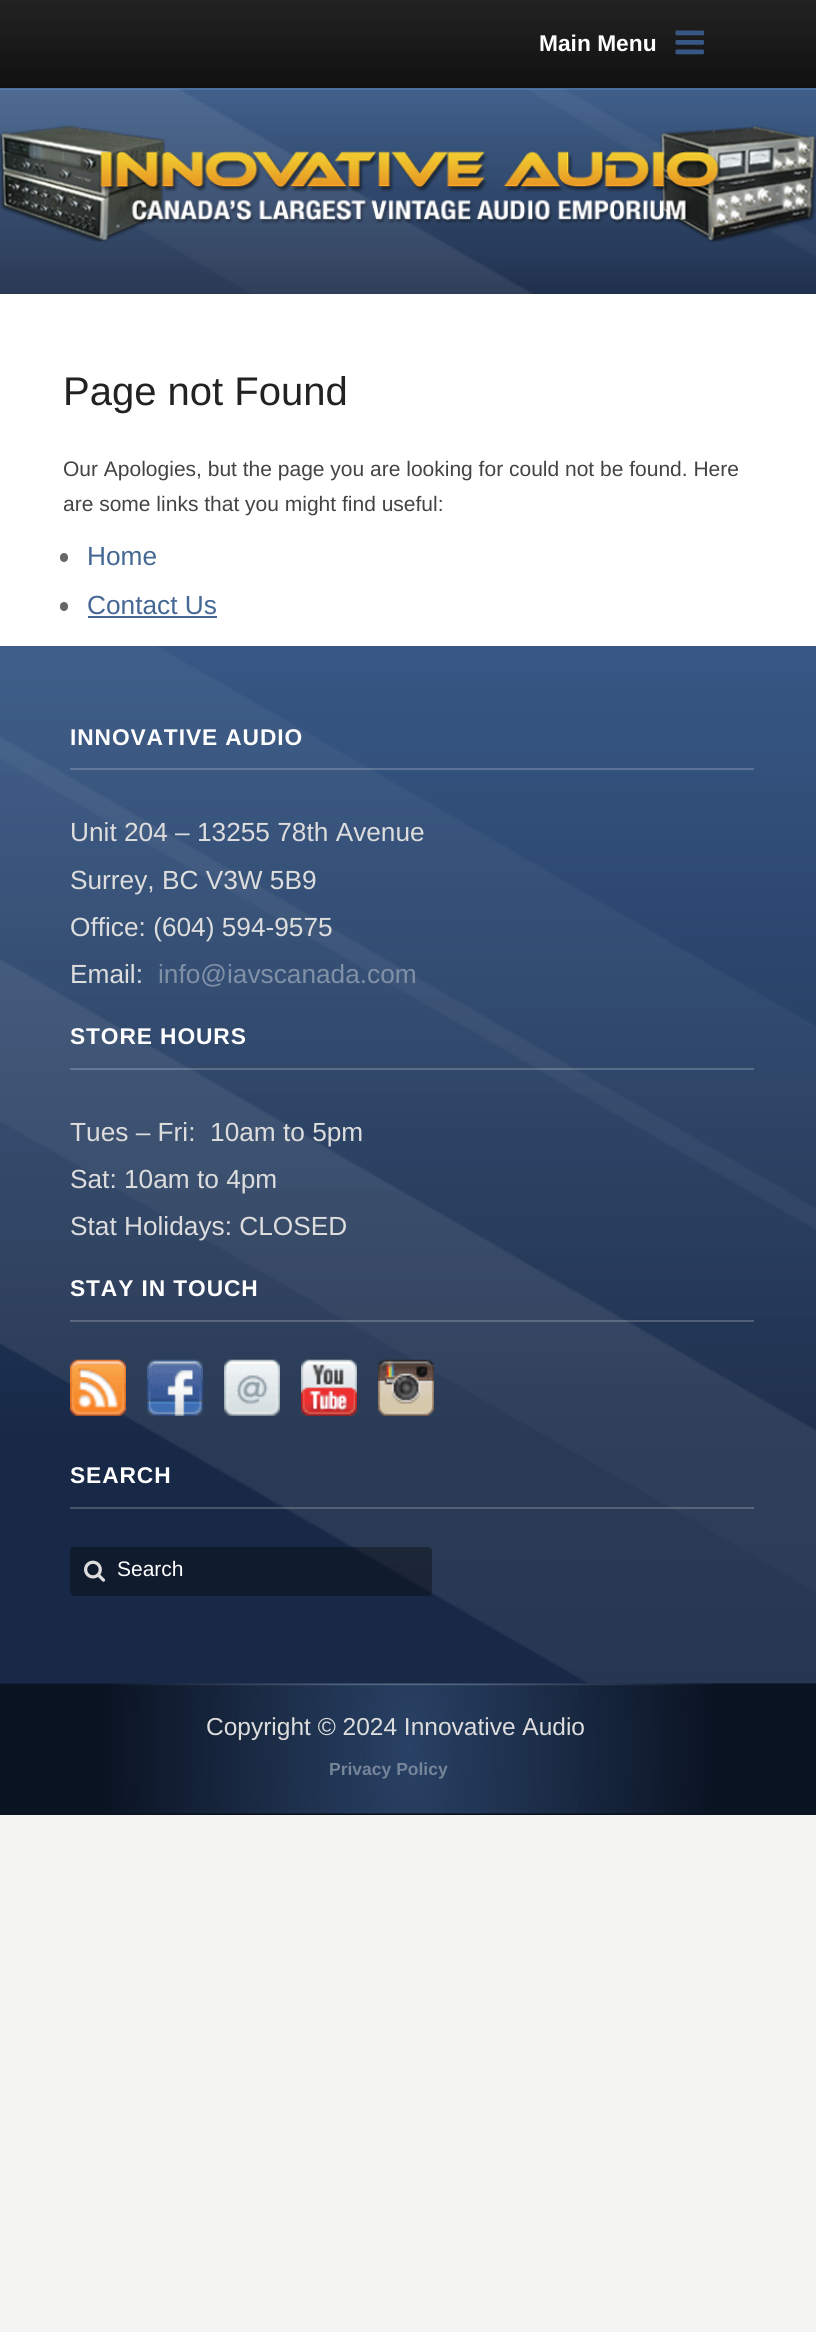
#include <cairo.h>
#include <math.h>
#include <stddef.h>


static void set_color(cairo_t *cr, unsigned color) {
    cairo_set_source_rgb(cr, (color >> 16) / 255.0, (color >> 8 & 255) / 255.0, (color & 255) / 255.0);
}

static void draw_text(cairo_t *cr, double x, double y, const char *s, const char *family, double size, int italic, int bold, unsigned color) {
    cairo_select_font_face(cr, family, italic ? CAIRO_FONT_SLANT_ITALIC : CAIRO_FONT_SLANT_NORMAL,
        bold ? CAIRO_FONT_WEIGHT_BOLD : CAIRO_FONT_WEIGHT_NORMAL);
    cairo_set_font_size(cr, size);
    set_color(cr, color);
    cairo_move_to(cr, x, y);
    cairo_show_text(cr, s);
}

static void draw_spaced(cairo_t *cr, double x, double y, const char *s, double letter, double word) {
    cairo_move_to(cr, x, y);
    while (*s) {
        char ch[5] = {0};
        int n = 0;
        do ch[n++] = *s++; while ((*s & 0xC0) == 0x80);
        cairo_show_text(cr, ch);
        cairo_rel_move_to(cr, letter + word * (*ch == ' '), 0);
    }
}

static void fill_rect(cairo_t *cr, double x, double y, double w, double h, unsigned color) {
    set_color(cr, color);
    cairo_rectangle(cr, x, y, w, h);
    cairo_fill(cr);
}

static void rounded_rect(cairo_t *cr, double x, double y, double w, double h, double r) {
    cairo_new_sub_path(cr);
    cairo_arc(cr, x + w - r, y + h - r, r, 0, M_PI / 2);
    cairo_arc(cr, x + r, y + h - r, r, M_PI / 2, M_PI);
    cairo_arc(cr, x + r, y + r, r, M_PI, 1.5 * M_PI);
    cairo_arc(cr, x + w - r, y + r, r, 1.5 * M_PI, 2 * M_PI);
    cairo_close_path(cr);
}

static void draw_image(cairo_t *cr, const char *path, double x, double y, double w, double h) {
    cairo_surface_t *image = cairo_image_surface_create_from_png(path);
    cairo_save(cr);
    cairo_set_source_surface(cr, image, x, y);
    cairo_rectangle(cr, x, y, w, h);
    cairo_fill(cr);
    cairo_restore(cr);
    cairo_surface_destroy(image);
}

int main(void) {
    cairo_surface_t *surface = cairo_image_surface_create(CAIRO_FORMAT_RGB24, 816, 2332);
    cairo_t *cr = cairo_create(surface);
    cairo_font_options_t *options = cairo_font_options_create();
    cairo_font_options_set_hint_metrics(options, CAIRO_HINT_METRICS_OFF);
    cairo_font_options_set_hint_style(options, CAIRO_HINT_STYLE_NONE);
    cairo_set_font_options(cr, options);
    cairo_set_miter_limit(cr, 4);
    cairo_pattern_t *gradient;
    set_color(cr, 0xF4F4F2);
    cairo_paint(cr);
    gradient = cairo_pattern_create_linear(409, 0, 409, 88);
    cairo_pattern_add_color_stop_rgba(gradient, 0, 0.133, 0.133, 0.133, 1);
    cairo_pattern_add_color_stop_rgba(gradient, 1, 0.067, 0.067, 0.067, 1);
    cairo_set_source(cr, gradient);
    cairo_pattern_destroy(gradient);
    cairo_rectangle(cr, 0, 0, 816, 88);
    cairo_fill(cr);
    draw_text(cr, 539, 51, "Main Menu", "Liberation Sans", 22.75, 0, 1, 0xFFFFFF);
    draw_image(cr, "assets/img1.png", 675, 30, 29, 25);
    gradient = cairo_pattern_create_linear(409, 89, 409, 294);
    cairo_pattern_add_color_stop_rgba(gradient, 0, 0.216, 0.345, 0.522, 1);
    cairo_pattern_add_color_stop_rgba(gradient, 1, 0.094, 0.161, 0.278, 1);
    cairo_set_source(cr, gradient);
    cairo_pattern_destroy(gradient);
    cairo_rectangle(cr, 0, 90, 816, 204);
    cairo_fill(cr);
    fill_rect(cr, 0, 88, 816, 2, 0x496D9D);
    draw_image(cr, "assets/img2.png", 0, 89, 816, 205);
    draw_image(cr, "assets/img3.png", 0, 125, 816, 117);
    fill_rect(cr, 0, 294, 816, 352, 0xFFFFFF);
    draw_text(cr, 63, 405, "Page not Found", "Liberation Sans", 40, 0, 0, 0x222222);
    draw_text(cr, 63, 476, "Our Apologies, but the page you are looking for could not be found. Here", "Liberation Sans", 21, 0, 0, 0x444444);
    draw_text(cr, 63, 511, "are some links that you might find useful:", "Liberation Sans", 21, 0, 0, 0x444444);
    set_color(cr, 0x646668);
    rounded_rect(cr, 60, 553, 8, 9, 4);
    cairo_fill(cr);
    draw_text(cr, 87, 565, "Home", "Liberation Sans", 26.25, 0, 0, 0x456793);
    set_color(cr, 0x646668);
    rounded_rect(cr, 60, 602, 8, 9, 4);
    cairo_fill(cr);
    draw_text(cr, 87, 614, "Contact Us", "Liberation Sans", 26.25, 0, 0, 0x456793);
    fill_rect(cr, 88, 616, 129, 2, 0x456793);
    gradient = cairo_pattern_create_linear(409, 646, 409, 1815);
    cairo_pattern_add_color_stop_rgba(gradient, 0, 0.216, 0.345, 0.522, 1);
    cairo_pattern_add_color_stop_rgba(gradient, 0.68, 0.094, 0.161, 0.278, 1);
    cairo_set_source(cr, gradient);
    cairo_pattern_destroy(gradient);
    cairo_rectangle(cr, 0, 646, 816, 1038);
    cairo_fill(cr);
    draw_image(cr, "assets/img4.png", 0, 646, 816, 1038);
    cairo_set_source_rgba(cr, 1, 1, 1, 0.2);
    cairo_rectangle(cr, 70, 768, 684, 2);
    cairo_fill(cr);
    cairo_select_font_face(cr, "Liberation Sans", CAIRO_FONT_SLANT_NORMAL, CAIRO_FONT_WEIGHT_BOLD);
    cairo_set_font_size(cr, 22.75);
    set_color(cr, 0xFFFFFF);
    draw_spaced(cr, 70, 745, "INNOVATIVE AUDIO", 0.9, 0);
    draw_text(cr, 70, 841, "Unit 204 – 13255 78th Avenue", "Liberation Sans", 26.25, 0, 0, 0xDDDDDD);
    draw_text(cr, 70, 889, "Surrey, BC V3W 5B9", "Liberation Sans", 26.25, 0, 0, 0xDDDDDD);
    draw_text(cr, 70, 936, "Office: (604) 594-9575", "Liberation Sans", 26.25, 0, 0, 0xDDDDDD);
    draw_text(cr, 70, 983, "Email:", "Liberation Sans", 26.25, 0, 0, 0xDDDDDD);
    draw_text(cr, 158, 983, "info@iavscanada.com", "Liberation Sans", 26.25, 0, 0, 0x8090A7);
    cairo_set_source_rgba(cr, 1, 1, 1, 0.2);
    cairo_rectangle(cr, 70, 1068, 684, 2);
    cairo_fill(cr);
    cairo_select_font_face(cr, "Liberation Sans", CAIRO_FONT_SLANT_NORMAL, CAIRO_FONT_WEIGHT_BOLD);
    cairo_set_font_size(cr, 22.75);
    set_color(cr, 0xFFFFFF);
    draw_spaced(cr, 70, 1044, "STORE HOURS", 0.9, 0);
    draw_text(cr, 70, 1141, "Tues – Fri:  10am to 5pm", "Liberation Sans", 26.25, 0, 0, 0xDDDDDD);
    draw_text(cr, 70, 1188, "Sat: 10am to 4pm", "Liberation Sans", 26.25, 0, 0, 0xDDDDDD);
    draw_text(cr, 70, 1235, "Stat Holidays: CLOSED", "Liberation Sans", 26.25, 0, 0, 0xDDDDDD);
    cairo_set_source_rgba(cr, 1, 1, 1, 0.2);
    cairo_rectangle(cr, 70, 1320, 684, 2);
    cairo_fill(cr);
    cairo_select_font_face(cr, "Liberation Sans", CAIRO_FONT_SLANT_NORMAL, CAIRO_FONT_WEIGHT_BOLD);
    cairo_set_font_size(cr, 22.75);
    set_color(cr, 0xFFFFFF);
    draw_spaced(cr, 70, 1296, "STAY IN TOUCH", 0.9, 0);
    draw_image(cr, "assets/img5.png", 70, 1359, 56, 57);
    draw_image(cr, "assets/img6.png", 147, 1359, 56, 57);
    draw_image(cr, "assets/img7.png", 224, 1359, 56, 57);
    draw_image(cr, "assets/img8.png", 301, 1359, 56, 57);
    draw_image(cr, "assets/img9.png", 378, 1359, 56, 57);
    cairo_set_source_rgba(cr, 1, 1, 1, 0.2);
    cairo_rectangle(cr, 70, 1507, 684, 2);
    cairo_fill(cr);
    set_color(cr, 0xFFFFFF);
    draw_spaced(cr, 70, 1483, "SEARCH", 0.9, 0);
    cairo_set_source_rgba(cr, 0, 0, 0, 0.35);
    rounded_rect(cr, 70, 1547, 362, 49, 4);
    cairo_fill(cr);
    draw_image(cr, "assets/img10.png", 84, 1560, 22, 22);
    draw_text(cr, 117, 1576, "Search", "Liberation Sans", 21, 0, 0, 0xFFFFFF);
    fill_rect(cr, 0, 1814, 816, 1, 0x0A1322);
    draw_image(cr, "assets/img11.png", 0, 1683, 816, 131);
    draw_text(cr, 206, 1735, "Copyright © 2024 Innovative Audio", "Liberation Sans", 24.5, 0, 0, 0xDDDDDD);
    draw_text(cr, 329, 1775, "Privacy Policy", "Liberation Sans", 17.5, 0, 1, 0x768499);
    cairo_surface_write_to_png(surface, "output.png");
    cairo_font_options_destroy(options);
    cairo_destroy(cr);
    cairo_surface_destroy(surface);
    return 0;
}
